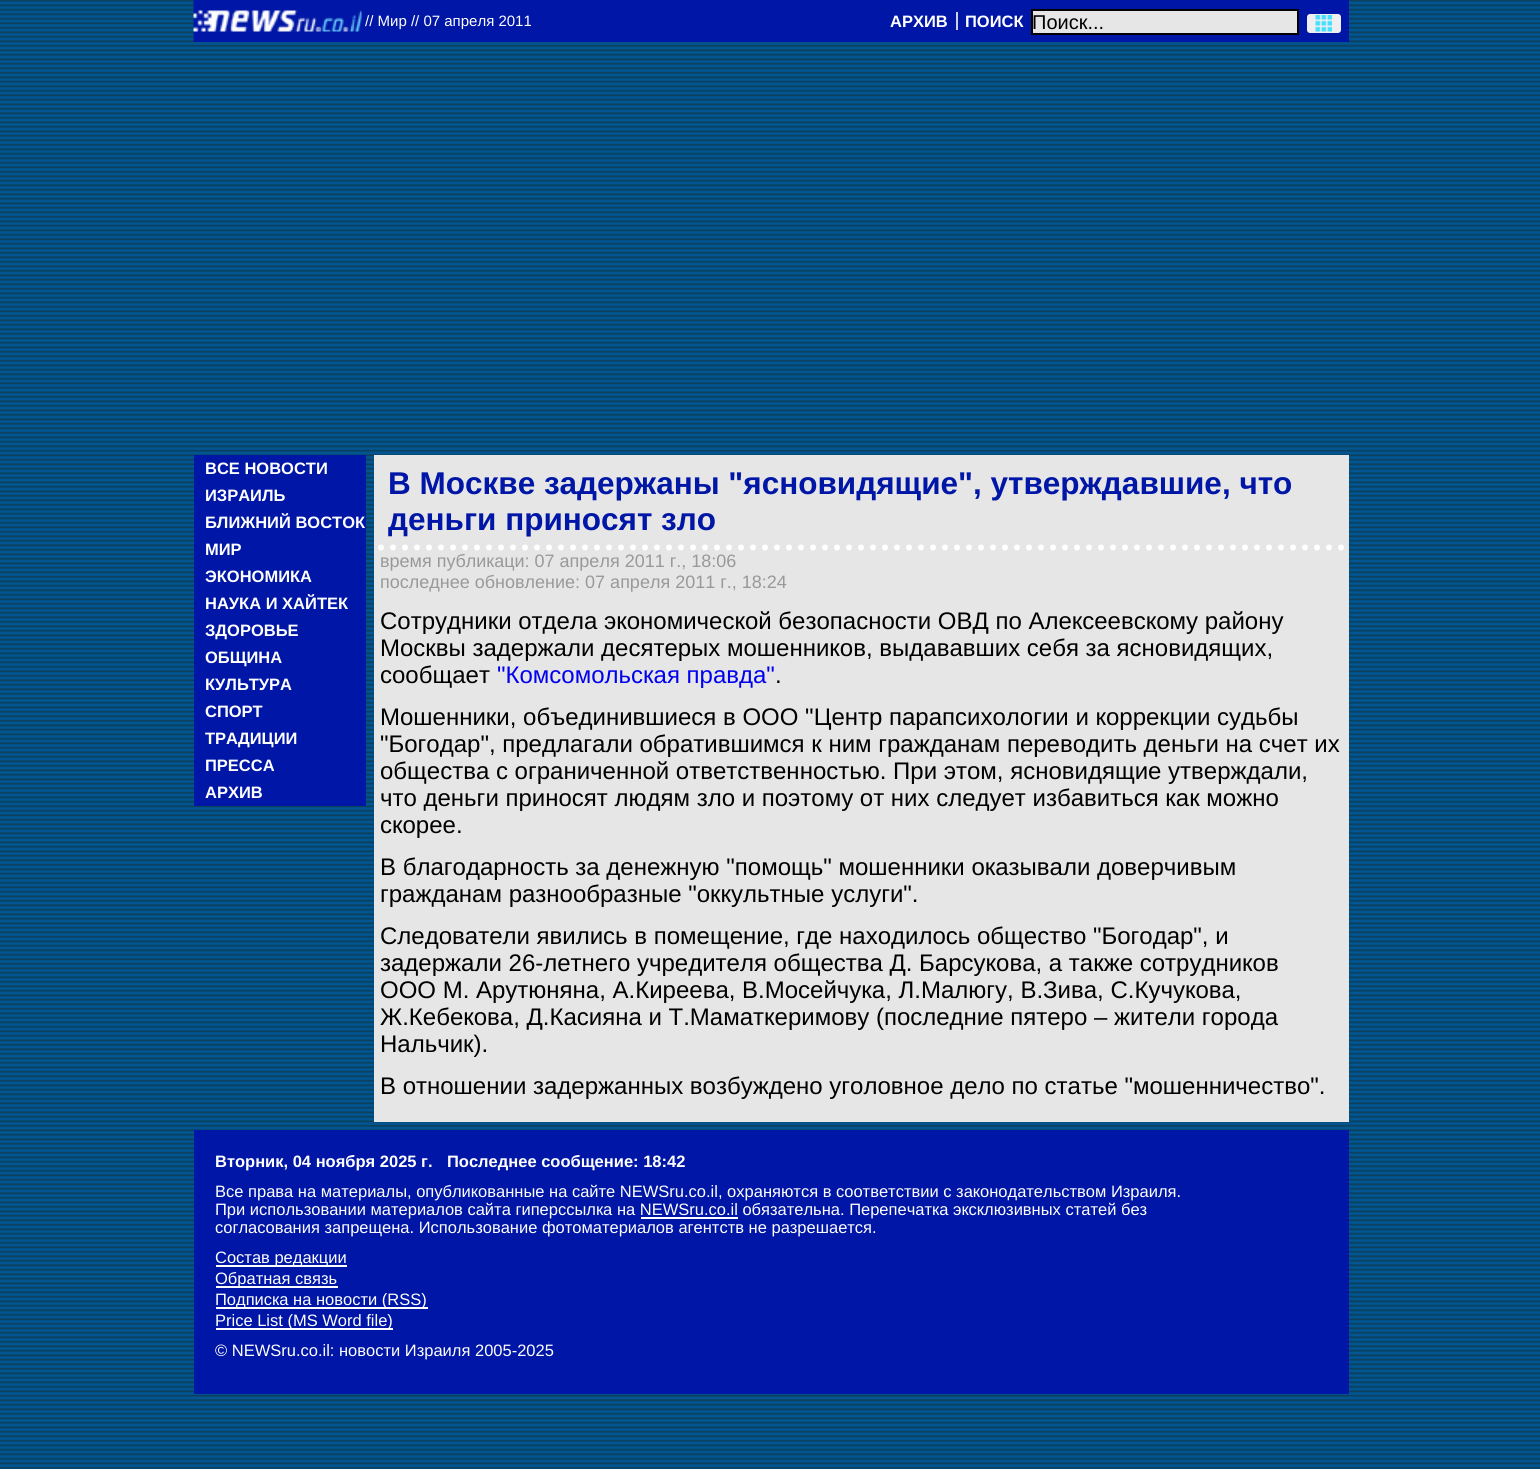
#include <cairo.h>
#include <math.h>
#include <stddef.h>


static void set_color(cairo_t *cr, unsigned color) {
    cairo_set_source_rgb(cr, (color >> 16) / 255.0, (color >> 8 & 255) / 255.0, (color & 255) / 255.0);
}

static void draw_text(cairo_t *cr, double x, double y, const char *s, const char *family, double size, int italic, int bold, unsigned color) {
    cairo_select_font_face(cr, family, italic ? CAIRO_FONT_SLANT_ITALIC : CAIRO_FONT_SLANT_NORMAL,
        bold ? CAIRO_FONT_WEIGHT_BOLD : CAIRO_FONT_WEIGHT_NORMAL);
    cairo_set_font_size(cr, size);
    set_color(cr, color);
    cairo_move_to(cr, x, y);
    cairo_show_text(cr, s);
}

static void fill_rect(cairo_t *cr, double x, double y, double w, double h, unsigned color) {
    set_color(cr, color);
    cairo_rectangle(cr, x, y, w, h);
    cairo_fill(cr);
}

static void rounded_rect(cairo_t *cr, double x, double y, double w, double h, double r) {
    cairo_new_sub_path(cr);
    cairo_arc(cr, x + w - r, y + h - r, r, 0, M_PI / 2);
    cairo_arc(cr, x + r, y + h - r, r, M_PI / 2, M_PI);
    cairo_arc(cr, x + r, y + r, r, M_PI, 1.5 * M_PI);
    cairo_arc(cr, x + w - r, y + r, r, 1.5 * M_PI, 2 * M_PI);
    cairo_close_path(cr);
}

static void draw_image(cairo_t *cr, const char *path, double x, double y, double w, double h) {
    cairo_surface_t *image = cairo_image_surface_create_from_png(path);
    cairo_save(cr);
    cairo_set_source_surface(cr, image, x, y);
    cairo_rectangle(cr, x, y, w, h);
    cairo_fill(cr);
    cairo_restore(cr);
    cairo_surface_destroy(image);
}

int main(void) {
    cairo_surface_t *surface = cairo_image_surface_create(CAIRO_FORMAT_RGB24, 1540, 1469);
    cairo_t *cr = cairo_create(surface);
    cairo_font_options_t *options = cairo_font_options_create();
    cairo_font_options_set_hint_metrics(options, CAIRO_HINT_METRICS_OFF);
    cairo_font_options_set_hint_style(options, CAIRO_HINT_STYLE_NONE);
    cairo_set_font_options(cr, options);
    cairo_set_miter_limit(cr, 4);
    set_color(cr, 0xFFFFFF);
    cairo_paint(cr);
    draw_image(cr, "assets/img1.png", 0, 0, 1540, 1469);
    fill_rect(cr, 362, 0, 987, 42, 0x0016A6);
    draw_image(cr, "assets/img2.png", 193, 0, 169, 42);
    draw_text(cr, 365, 26, "// Мир // 07 апреля 2011", "Liberation Sans", 15, 0, 0, 0xFFFFFF);
    draw_text(cr, 890, 27, "АРХИВ", "Liberation Sans", 16.5, 0, 1, 0xFFFFFF);
    fill_rect(cr, 956, 12, 2, 18, 0xCFD1E2);
    draw_text(cr, 965, 27, "ПОИСК", "Liberation Sans", 16.5, 0, 1, 0xFFFFFF);
    set_color(cr, 0xE6E6E6);
    cairo_rectangle(cr, 1032, 10, 266, 24);
    cairo_fill_preserve(cr);
    set_color(cr, 0x000000);
    cairo_stroke(cr);
    draw_text(cr, 1032, 29, "Поиск...", "Liberation Sans", 20, 0, 0, 0x000000);
    set_color(cr, 0xEFEFEF);
    rounded_rect(cr, 1307, 14, 34, 19, 3);
    cairo_fill(cr);
    draw_image(cr, "assets/img3.png", 1315, 15, 17, 17);
    fill_rect(cr, 194, 455, 172, 351, 0x0016A6);
    draw_text(cr, 205, 474, "ВСЕ НОВОСТИ", "Liberation Sans", 16.5, 0, 1, 0xFFFFFF);
    draw_text(cr, 205, 501, "ИЗРАИЛЬ", "Liberation Sans", 16.5, 0, 1, 0xFFFFFF);
    draw_text(cr, 205, 528, "БЛИЖНИЙ ВОСТОК", "Liberation Sans", 16.5, 0, 1, 0xFFFFFF);
    draw_text(cr, 205, 555, "МИР", "Liberation Sans", 16.5, 0, 1, 0xFFFFFF);
    draw_text(cr, 205, 582, "ЭКОНОМИКА", "Liberation Sans", 16.5, 0, 1, 0xFFFFFF);
    draw_text(cr, 205, 609, "НАУКА И ХАЙТЕК", "Liberation Sans", 16.5, 0, 1, 0xFFFFFF);
    draw_text(cr, 205, 636, "ЗДОРОВЬЕ", "Liberation Sans", 16.5, 0, 1, 0xFFFFFF);
    draw_text(cr, 205, 663, "ОБЩИНА", "Liberation Sans", 16.5, 0, 1, 0xFFFFFF);
    draw_text(cr, 205, 690, "КУЛЬТУРА", "Liberation Sans", 16.5, 0, 1, 0xFFFFFF);
    draw_text(cr, 205, 717, "СПОРТ", "Liberation Sans", 16.5, 0, 1, 0xFFFFFF);
    draw_text(cr, 205, 744, "ТРАДИЦИИ", "Liberation Sans", 16.5, 0, 1, 0xFFFFFF);
    draw_text(cr, 205, 771, "ПРЕССА", "Liberation Sans", 16.5, 0, 1, 0xFFFFFF);
    draw_text(cr, 205, 798, "АРХИВ", "Liberation Sans", 16.5, 0, 1, 0xFFFFFF);
    fill_rect(cr, 374, 455, 975, 667, 0xE6E6E6);
    cairo_new_path(cr);
    cairo_move_to(cr, 381, 547.5);
    cairo_line_to(cr, 1341, 547.5);
    set_color(cr, 0xFFFFFF);
    cairo_set_line_width(cr, 6);
    cairo_set_line_cap(cr, CAIRO_LINE_CAP_ROUND);
    cairo_set_dash(cr, (double[]){0, 12}, 2, 0);
    cairo_stroke(cr);
    draw_text(cr, 388, 494, "В Москве задержаны \"ясновидящие\", утверждавшие, что", "Liberation Sans", 31.5, 0, 1, 0x0016A6);
    draw_text(cr, 388, 530, "деньги приносят зло", "Liberation Sans", 31.5, 0, 1, 0x0016A6);
    draw_text(cr, 380, 567, "время публикаци: 07 апреля 2011 г., 18:06", "Liberation Sans", 18, 0, 0, 0x999999);
    draw_text(cr, 380, 588, "последнее обновление: 07 апреля 2011 г., 18:24", "Liberation Sans", 18, 0, 0, 0x999999);
    draw_text(cr, 380, 629, "Сотрудники отдела экономической безопасности ОВД по Алексеевскому району", "Liberation Sans", 24, 0, 0, 0x000000);
    draw_text(cr, 380, 656, "Москвы задержали десятерых мошенников, выдававших себя за ясновидящих,", "Liberation Sans", 24, 0, 0, 0x000000);
    draw_text(cr, 380, 683, "сообщает", "Liberation Sans", 24, 0, 0, 0x000000);
    draw_text(cr, 497, 683, "\"Комсомольская правда\"", "Liberation Sans", 24, 0, 0, 0x0000EE);
    draw_text(cr, 775, 683, ".", "Liberation Sans", 24, 0, 0, 0x000000);
    draw_text(cr, 380, 725, "Мошенники, объединившиеся в ООО \"Центр парапсихологии и коррекции судьбы", "Liberation Sans", 24, 0, 0, 0x000000);
    draw_text(cr, 380, 752, "\"Богодар\", предлагали обратившимся к ним гражданам переводить деньги на счет их", "Liberation Sans", 24, 0, 0, 0x000000);
    draw_text(cr, 380, 779, "общества с ограниченной ответственностью. При этом, ясновидящие утверждали,", "Liberation Sans", 24, 0, 0, 0x000000);
    draw_text(cr, 380, 806, "что деньги приносят людям зло и поэтому от них следует избавиться как можно", "Liberation Sans", 24, 0, 0, 0x000000);
    draw_text(cr, 380, 833, "скорее.", "Liberation Sans", 24, 0, 0, 0x000000);
    draw_text(cr, 380, 875, "В благодарность за денежную \"помощь\" мошенники оказывали доверчивым", "Liberation Sans", 24, 0, 0, 0x000000);
    draw_text(cr, 380, 902, "гражданам разнообразные \"оккультные услуги\".", "Liberation Sans", 24, 0, 0, 0x000000);
    draw_text(cr, 380, 944, "Следователи явились в помещение, где находилось общество \"Богодар\", и", "Liberation Sans", 24, 0, 0, 0x000000);
    draw_text(cr, 380, 971, "задержали 26-летнего учредителя общества Д. Барсукова, а также сотрудников", "Liberation Sans", 24, 0, 0, 0x000000);
    draw_text(cr, 380, 998, "ООО М. Арутюняна, А.Киреева, В.Мосейчука, Л.Малюгу, В.Зива, С.Кучукова,", "Liberation Sans", 24, 0, 0, 0x000000);
    draw_text(cr, 380, 1025, "Ж.Кебекова, Д.Касияна и Т.Маматкеримову (последние пятеро – жители города", "Liberation Sans", 24, 0, 0, 0x000000);
    draw_text(cr, 380, 1052, "Нальчик).", "Liberation Sans", 24, 0, 0, 0x000000);
    draw_text(cr, 380, 1094, "В отношении задержанных возбуждено уголовное дело по статье \"мошенничество\".", "Liberation Sans", 24, 0, 0, 0x000000);
    fill_rect(cr, 194, 1130, 1155, 264, 0x0016A6);
    draw_text(cr, 215, 1167, "Вторник, 04 ноября 2025 г.", "Liberation Sans", 16.5, 0, 1, 0xFFFFFF);
    draw_text(cr, 447, 1167, "Последнее сообщение: 18:42", "Liberation Sans", 16.5, 0, 1, 0xFFFFFF);
    draw_text(cr, 215, 1197, "Все права на материалы, опубликованные на сайте NEWSru.co.il, охраняются в соответствии с законодательством Израиля.", "Liberation Sans", 16.5, 0, 0, 0xFFFFFF);
    draw_text(cr, 215, 1215, "При использовании материалов сайта гиперссылка на NEWSru.co.il обязательна. Перепечатка эксклюзивных статей без", "Liberation Sans", 16.5, 0, 0, 0xFFFFFF);
    fill_rect(cr, 641, 1217, 97, 2, 0xFFFFFF);
    draw_text(cr, 215, 1233, "согласования запрещена. Использование фотоматериалов агентств не разрешается.", "Liberation Sans", 16.5, 0, 0, 0xFFFFFF);
    fill_rect(cr, 216, 1265, 131, 2, 0xFFFFFF);
    draw_text(cr, 215, 1263, "Состав редакции", "Liberation Sans", 16.5, 0, 0, 0xFFFFFF);
    fill_rect(cr, 216, 1286, 122, 2, 0xFFFFFF);
    draw_text(cr, 215, 1284, "Обратная связь", "Liberation Sans", 16.5, 0, 0, 0xFFFFFF);
    fill_rect(cr, 216, 1307, 212, 2, 0xFFFFFF);
    draw_text(cr, 215, 1305, "Подписка на новости (RSS)", "Liberation Sans", 16.5, 0, 0, 0xFFFFFF);
    fill_rect(cr, 216, 1328, 177, 2, 0xFFFFFF);
    draw_text(cr, 215, 1326, "Price List (MS Word file)", "Liberation Sans", 16.5, 0, 0, 0xFFFFFF);
    draw_text(cr, 215, 1356, "© NEWSru.co.il: новости Израиля 2005-2025", "Liberation Sans", 16.5, 0, 0, 0xFFFFFF);
    cairo_surface_write_to_png(surface, "output.png");
    cairo_font_options_destroy(options);
    cairo_destroy(cr);
    cairo_surface_destroy(surface);
    return 0;
}
